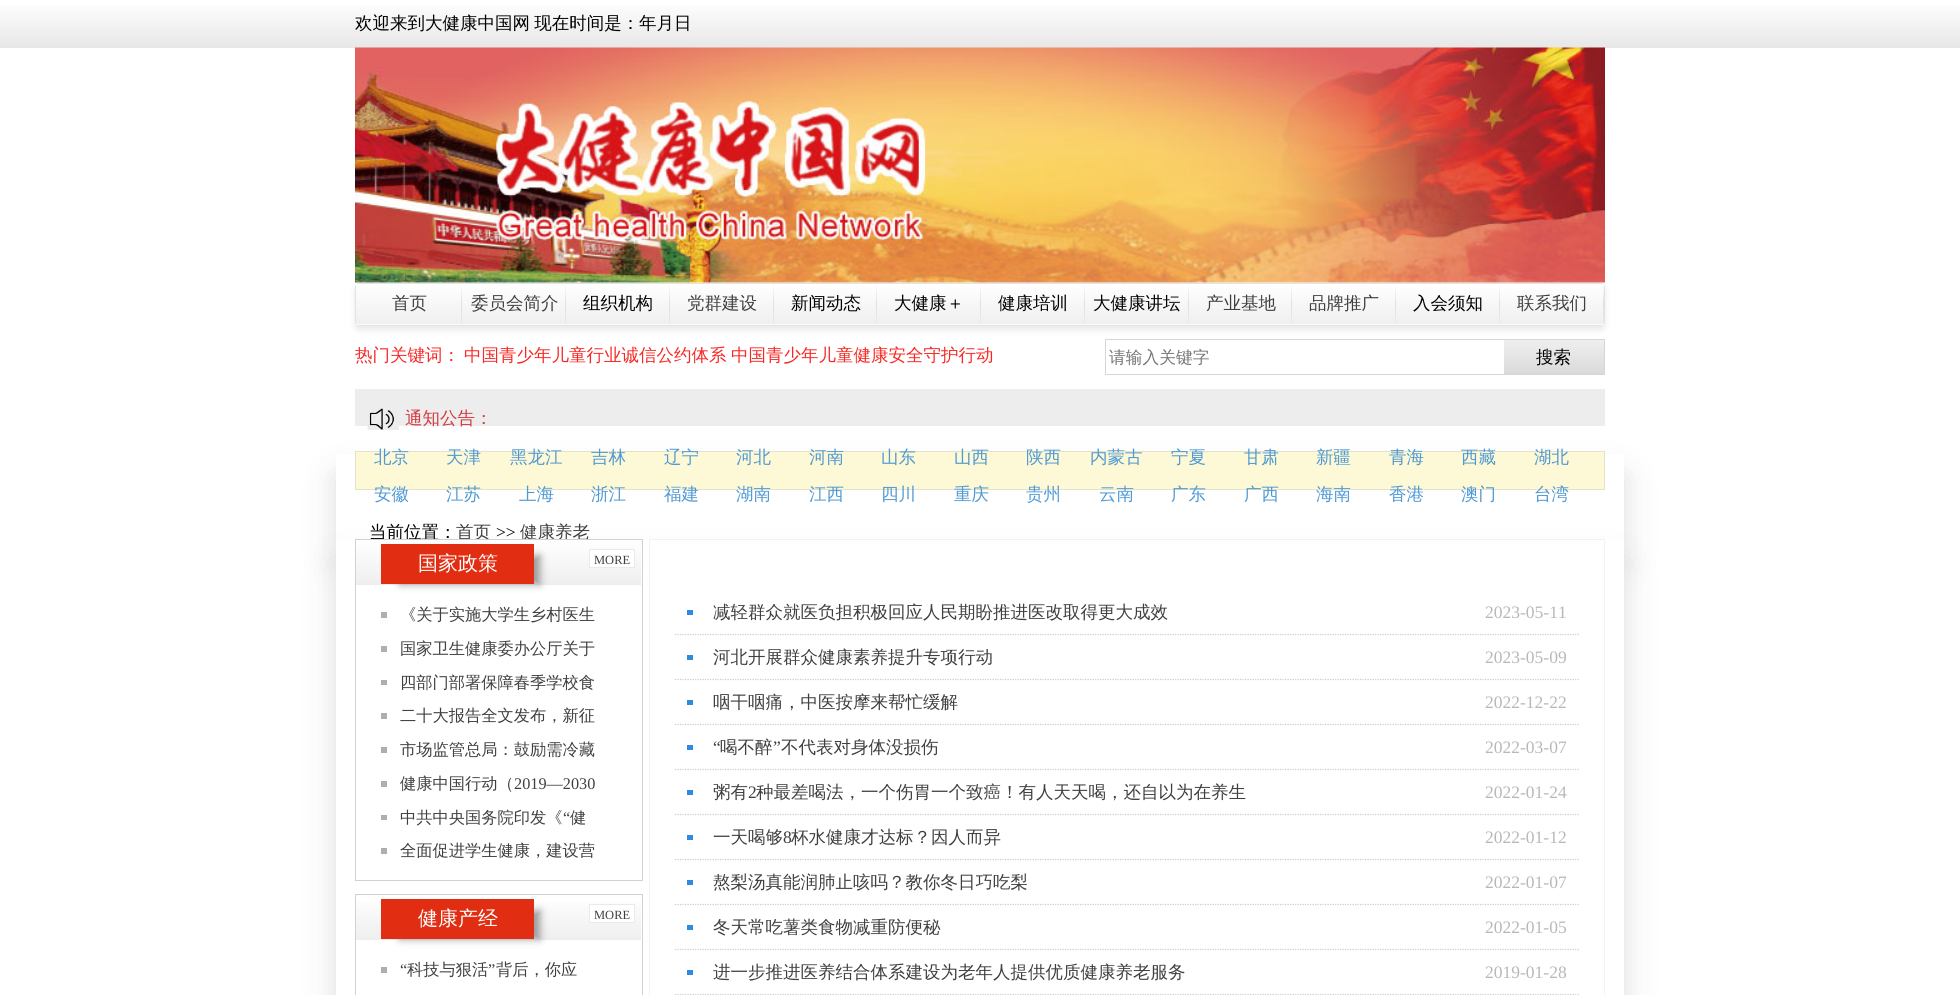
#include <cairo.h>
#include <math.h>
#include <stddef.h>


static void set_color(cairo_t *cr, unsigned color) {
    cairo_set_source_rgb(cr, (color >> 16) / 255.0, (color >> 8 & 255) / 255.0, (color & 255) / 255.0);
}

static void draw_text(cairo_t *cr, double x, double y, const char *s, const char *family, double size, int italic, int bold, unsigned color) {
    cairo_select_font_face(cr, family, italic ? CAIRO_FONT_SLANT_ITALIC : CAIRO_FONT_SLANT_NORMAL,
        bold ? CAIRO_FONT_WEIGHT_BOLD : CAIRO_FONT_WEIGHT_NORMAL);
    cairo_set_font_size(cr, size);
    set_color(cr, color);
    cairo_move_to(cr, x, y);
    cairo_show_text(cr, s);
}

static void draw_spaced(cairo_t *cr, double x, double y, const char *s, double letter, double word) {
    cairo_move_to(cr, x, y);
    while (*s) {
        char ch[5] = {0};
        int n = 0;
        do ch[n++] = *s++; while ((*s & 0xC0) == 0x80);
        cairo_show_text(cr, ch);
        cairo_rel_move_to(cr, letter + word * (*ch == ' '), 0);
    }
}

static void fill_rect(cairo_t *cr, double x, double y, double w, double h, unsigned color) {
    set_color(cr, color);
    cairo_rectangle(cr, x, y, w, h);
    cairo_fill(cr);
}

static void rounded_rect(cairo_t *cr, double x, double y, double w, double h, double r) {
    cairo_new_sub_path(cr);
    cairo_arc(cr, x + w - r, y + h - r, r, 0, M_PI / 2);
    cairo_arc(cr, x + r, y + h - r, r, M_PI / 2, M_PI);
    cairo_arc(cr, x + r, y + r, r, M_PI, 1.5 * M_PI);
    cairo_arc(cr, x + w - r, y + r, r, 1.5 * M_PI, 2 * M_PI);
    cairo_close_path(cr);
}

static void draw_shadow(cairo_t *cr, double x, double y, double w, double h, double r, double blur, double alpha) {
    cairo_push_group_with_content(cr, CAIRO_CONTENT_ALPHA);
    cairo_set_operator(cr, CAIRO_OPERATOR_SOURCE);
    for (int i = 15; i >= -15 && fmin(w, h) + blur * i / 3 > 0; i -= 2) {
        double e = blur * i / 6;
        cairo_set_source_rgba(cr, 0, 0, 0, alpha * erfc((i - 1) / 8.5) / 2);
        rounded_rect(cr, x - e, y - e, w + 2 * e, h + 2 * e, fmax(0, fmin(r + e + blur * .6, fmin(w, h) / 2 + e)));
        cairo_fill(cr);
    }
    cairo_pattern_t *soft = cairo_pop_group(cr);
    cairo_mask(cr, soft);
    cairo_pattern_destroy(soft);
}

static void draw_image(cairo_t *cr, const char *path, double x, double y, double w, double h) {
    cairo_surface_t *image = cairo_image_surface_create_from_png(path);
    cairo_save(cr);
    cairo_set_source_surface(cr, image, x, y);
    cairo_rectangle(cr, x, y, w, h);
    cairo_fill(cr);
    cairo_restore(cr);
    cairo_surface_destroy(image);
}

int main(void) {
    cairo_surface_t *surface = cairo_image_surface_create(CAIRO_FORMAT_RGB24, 1960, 995);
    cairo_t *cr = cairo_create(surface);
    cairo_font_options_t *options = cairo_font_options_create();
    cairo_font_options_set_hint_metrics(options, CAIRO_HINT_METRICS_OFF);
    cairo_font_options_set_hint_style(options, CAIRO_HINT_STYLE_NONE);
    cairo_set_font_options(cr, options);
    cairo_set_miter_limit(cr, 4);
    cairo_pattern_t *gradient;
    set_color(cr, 0xFFFFFF);
    cairo_paint(cr);
    gradient = cairo_pattern_create_linear(980, 0, 980, 48);
    cairo_pattern_add_color_stop_rgba(gradient, 0, 1, 1, 1, 1);
    cairo_pattern_add_color_stop_rgba(gradient, 1, 0.906, 0.906, 0.906, 1);
    cairo_set_source(cr, gradient);
    cairo_pattern_destroy(gradient);
    cairo_rectangle(cr, 0, 5, 1960, 43);
    cairo_fill(cr);
    cairo_select_font_face(cr, "WenQuanYi Zen Hei Medium", CAIRO_FONT_SLANT_NORMAL, CAIRO_FONT_WEIGHT_NORMAL);
    cairo_set_font_size(cr, 17.5);
    set_color(cr, 0x000000);
    draw_spaced(cr, 355, 29, "欢迎来到大健康中国网 现在时间是：", 0, -1);
    draw_text(cr, 639, 29, "年月日", "WenQuanYi Zen Hei Medium", 17.5, 0, 0, 0x000000);
    draw_image(cr, "assets/img1.png", 355, 47, 1250, 236);
    cairo_rectangle(cr, 1105.5, 339.5, 499, 35);
    set_color(cr, 0xD6D6D6);
    cairo_set_line_width(cr, 1);
    cairo_stroke(cr);
    set_color(cr, 0xE9E9E9);
    draw_shadow(cr, 355, 286, 1250, 44, 4, 3, 1);
    rounded_rect(cr, 355.5, 283.5, 1249, 42, 3.5);
    set_color(cr, 0xE3E3E3);
    cairo_stroke(cr);
    fill_rect(cr, 356, 324, 1248, 1, 0xFBFDFC);
    gradient = cairo_pattern_create_linear(409, 284, 409, 324);
    cairo_pattern_add_color_stop_rgba(gradient, 0, 1, 1, 1, 1);
    cairo_pattern_add_color_stop_rgba(gradient, 1, 0.937, 0.937, 0.937, 1);
    cairo_set_source(cr, gradient);
    cairo_pattern_destroy(gradient);
    cairo_rectangle(cr, 356, 284, 107, 40);
    cairo_fill(cr);
    draw_text(cr, 392, 309, "首页", "WenQuanYi Zen Hei Medium", 17.5, 0, 0, 0x3F3F3F);
    gradient = cairo_pattern_create_linear(462, 284, 462, 304);
    cairo_pattern_add_color_stop_rgba(gradient, 0, 0.996, 0.996, 0.996, 1);
    cairo_pattern_add_color_stop_rgba(gradient, 1, 0.871, 0.871, 0.871, 1);
    cairo_set_source(cr, gradient);
    cairo_pattern_destroy(gradient);
    cairo_rectangle(cr, 461, 284, 1, 20);
    cairo_fill(cr);
    gradient = cairo_pattern_create_linear(462, 304, 462, 324);
    cairo_pattern_add_color_stop_rgba(gradient, 0, 0.871, 0.871, 0.871, 1);
    cairo_pattern_add_color_stop_rgba(gradient, 1, 0.918, 0.918, 0.918, 1);
    cairo_set_source(cr, gradient);
    cairo_pattern_destroy(gradient);
    cairo_rectangle(cr, 461, 304, 1, 20);
    cairo_fill(cr);
    gradient = cairo_pattern_create_linear(514, 284, 514, 324);
    cairo_pattern_add_color_stop_rgba(gradient, 0, 1, 1, 1, 1);
    cairo_pattern_add_color_stop_rgba(gradient, 1, 0.937, 0.937, 0.937, 1);
    cairo_set_source(cr, gradient);
    cairo_pattern_destroy(gradient);
    cairo_rectangle(cr, 463, 284, 102, 40);
    cairo_fill(cr);
    draw_text(cr, 471, 309, "委员会简介", "WenQuanYi Zen Hei Medium", 17.5, 0, 0, 0x3F3F3F);
    gradient = cairo_pattern_create_linear(566, 284, 566, 304);
    cairo_pattern_add_color_stop_rgba(gradient, 0, 0.996, 0.996, 0.996, 1);
    cairo_pattern_add_color_stop_rgba(gradient, 1, 0.871, 0.871, 0.871, 1);
    cairo_set_source(cr, gradient);
    cairo_pattern_destroy(gradient);
    cairo_rectangle(cr, 565, 284, 1, 20);
    cairo_fill(cr);
    gradient = cairo_pattern_create_linear(566, 304, 566, 324);
    cairo_pattern_add_color_stop_rgba(gradient, 0, 0.871, 0.871, 0.871, 1);
    cairo_pattern_add_color_stop_rgba(gradient, 1, 0.918, 0.918, 0.918, 1);
    cairo_set_source(cr, gradient);
    cairo_pattern_destroy(gradient);
    cairo_rectangle(cr, 565, 304, 1, 20);
    cairo_fill(cr);
    gradient = cairo_pattern_create_linear(618, 284, 618, 324);
    cairo_pattern_add_color_stop_rgba(gradient, 0, 1, 1, 1, 1);
    cairo_pattern_add_color_stop_rgba(gradient, 1, 0.937, 0.937, 0.937, 1);
    cairo_set_source(cr, gradient);
    cairo_pattern_destroy(gradient);
    cairo_rectangle(cr, 566, 284, 103, 40);
    cairo_fill(cr);
    draw_text(cr, 583, 309, "组织机构", "WenQuanYi Zen Hei Medium", 17.5, 0, 0, 0x000000);
    gradient = cairo_pattern_create_linear(669, 284, 669, 304);
    cairo_pattern_add_color_stop_rgba(gradient, 0, 0.996, 0.996, 0.996, 1);
    cairo_pattern_add_color_stop_rgba(gradient, 1, 0.871, 0.871, 0.871, 1);
    cairo_set_source(cr, gradient);
    cairo_pattern_destroy(gradient);
    cairo_rectangle(cr, 669, 284, 1, 20);
    cairo_fill(cr);
    gradient = cairo_pattern_create_linear(669, 304, 669, 324);
    cairo_pattern_add_color_stop_rgba(gradient, 0, 0.871, 0.871, 0.871, 1);
    cairo_pattern_add_color_stop_rgba(gradient, 1, 0.918, 0.918, 0.918, 1);
    cairo_set_source(cr, gradient);
    cairo_pattern_destroy(gradient);
    cairo_rectangle(cr, 669, 304, 1, 20);
    cairo_fill(cr);
    gradient = cairo_pattern_create_linear(722, 284, 722, 324);
    cairo_pattern_add_color_stop_rgba(gradient, 0, 1, 1, 1, 1);
    cairo_pattern_add_color_stop_rgba(gradient, 1, 0.937, 0.937, 0.937, 1);
    cairo_set_source(cr, gradient);
    cairo_pattern_destroy(gradient);
    cairo_rectangle(cr, 670, 284, 103, 40);
    cairo_fill(cr);
    draw_text(cr, 687, 309, "党群建设", "WenQuanYi Zen Hei Medium", 17.5, 0, 0, 0x3F3F3F);
    gradient = cairo_pattern_create_linear(773, 284, 773, 304);
    cairo_pattern_add_color_stop_rgba(gradient, 0, 0.996, 0.996, 0.996, 1);
    cairo_pattern_add_color_stop_rgba(gradient, 1, 0.871, 0.871, 0.871, 1);
    cairo_set_source(cr, gradient);
    cairo_pattern_destroy(gradient);
    cairo_rectangle(cr, 773, 284, 1, 20);
    cairo_fill(cr);
    gradient = cairo_pattern_create_linear(773, 304, 773, 324);
    cairo_pattern_add_color_stop_rgba(gradient, 0, 0.871, 0.871, 0.871, 1);
    cairo_pattern_add_color_stop_rgba(gradient, 1, 0.918, 0.918, 0.918, 1);
    cairo_set_source(cr, gradient);
    cairo_pattern_destroy(gradient);
    cairo_rectangle(cr, 773, 304, 1, 20);
    cairo_fill(cr);
    gradient = cairo_pattern_create_linear(826, 284, 826, 324);
    cairo_pattern_add_color_stop_rgba(gradient, 0, 1, 1, 1, 1);
    cairo_pattern_add_color_stop_rgba(gradient, 1, 0.937, 0.937, 0.937, 1);
    cairo_set_source(cr, gradient);
    cairo_pattern_destroy(gradient);
    cairo_rectangle(cr, 774, 284, 104, 40);
    cairo_fill(cr);
    draw_text(cr, 791, 309, "新闻动态", "WenQuanYi Zen Hei Medium", 17.5, 0, 0, 0x000000);
    gradient = cairo_pattern_create_linear(877, 284, 877, 304);
    cairo_pattern_add_color_stop_rgba(gradient, 0, 0.996, 0.996, 0.996, 1);
    cairo_pattern_add_color_stop_rgba(gradient, 1, 0.871, 0.871, 0.871, 1);
    cairo_set_source(cr, gradient);
    cairo_pattern_destroy(gradient);
    cairo_rectangle(cr, 876, 284, 1, 20);
    cairo_fill(cr);
    gradient = cairo_pattern_create_linear(877, 304, 877, 324);
    cairo_pattern_add_color_stop_rgba(gradient, 0, 0.871, 0.871, 0.871, 1);
    cairo_pattern_add_color_stop_rgba(gradient, 1, 0.918, 0.918, 0.918, 1);
    cairo_set_source(cr, gradient);
    cairo_pattern_destroy(gradient);
    cairo_rectangle(cr, 876, 304, 1, 20);
    cairo_fill(cr);
    gradient = cairo_pattern_create_linear(929, 284, 929, 324);
    cairo_pattern_add_color_stop_rgba(gradient, 0, 1, 1, 1, 1);
    cairo_pattern_add_color_stop_rgba(gradient, 1, 0.937, 0.937, 0.937, 1);
    cairo_set_source(cr, gradient);
    cairo_pattern_destroy(gradient);
    cairo_rectangle(cr, 878, 284, 102, 40);
    cairo_fill(cr);
    draw_text(cr, 894, 309, "大健康＋", "WenQuanYi Zen Hei Medium", 17.5, 0, 0, 0x000000);
    gradient = cairo_pattern_create_linear(981, 284, 981, 304);
    cairo_pattern_add_color_stop_rgba(gradient, 0, 0.996, 0.996, 0.996, 1);
    cairo_pattern_add_color_stop_rgba(gradient, 1, 0.871, 0.871, 0.871, 1);
    cairo_set_source(cr, gradient);
    cairo_pattern_destroy(gradient);
    cairo_rectangle(cr, 980, 284, 1, 20);
    cairo_fill(cr);
    gradient = cairo_pattern_create_linear(981, 304, 981, 324);
    cairo_pattern_add_color_stop_rgba(gradient, 0, 0.871, 0.871, 0.871, 1);
    cairo_pattern_add_color_stop_rgba(gradient, 1, 0.918, 0.918, 0.918, 1);
    cairo_set_source(cr, gradient);
    cairo_pattern_destroy(gradient);
    cairo_rectangle(cr, 980, 304, 1, 20);
    cairo_fill(cr);
    gradient = cairo_pattern_create_linear(1033, 284, 1033, 324);
    cairo_pattern_add_color_stop_rgba(gradient, 0, 1, 1, 1, 1);
    cairo_pattern_add_color_stop_rgba(gradient, 1, 0.937, 0.937, 0.937, 1);
    cairo_set_source(cr, gradient);
    cairo_pattern_destroy(gradient);
    cairo_rectangle(cr, 981, 284, 103, 40);
    cairo_fill(cr);
    draw_text(cr, 998, 309, "健康培训", "WenQuanYi Zen Hei Medium", 17.5, 0, 0, 0x000000);
    gradient = cairo_pattern_create_linear(1084, 284, 1084, 304);
    cairo_pattern_add_color_stop_rgba(gradient, 0, 0.996, 0.996, 0.996, 1);
    cairo_pattern_add_color_stop_rgba(gradient, 1, 0.871, 0.871, 0.871, 1);
    cairo_set_source(cr, gradient);
    cairo_pattern_destroy(gradient);
    cairo_rectangle(cr, 1084, 284, 1, 20);
    cairo_fill(cr);
    gradient = cairo_pattern_create_linear(1084, 304, 1084, 324);
    cairo_pattern_add_color_stop_rgba(gradient, 0, 0.871, 0.871, 0.871, 1);
    cairo_pattern_add_color_stop_rgba(gradient, 1, 0.918, 0.918, 0.918, 1);
    cairo_set_source(cr, gradient);
    cairo_pattern_destroy(gradient);
    cairo_rectangle(cr, 1084, 304, 1, 20);
    cairo_fill(cr);
    gradient = cairo_pattern_create_linear(1137, 284, 1137, 324);
    cairo_pattern_add_color_stop_rgba(gradient, 0, 1, 1, 1, 1);
    cairo_pattern_add_color_stop_rgba(gradient, 1, 0.937, 0.937, 0.937, 1);
    cairo_set_source(cr, gradient);
    cairo_pattern_destroy(gradient);
    cairo_rectangle(cr, 1085, 284, 103, 40);
    cairo_fill(cr);
    draw_text(cr, 1093, 309, "大健康讲坛", "WenQuanYi Zen Hei Medium", 17.5, 0, 0, 0x000000);
    gradient = cairo_pattern_create_linear(1188, 284, 1188, 304);
    cairo_pattern_add_color_stop_rgba(gradient, 0, 0.996, 0.996, 0.996, 1);
    cairo_pattern_add_color_stop_rgba(gradient, 1, 0.871, 0.871, 0.871, 1);
    cairo_set_source(cr, gradient);
    cairo_pattern_destroy(gradient);
    cairo_rectangle(cr, 1188, 284, 1, 20);
    cairo_fill(cr);
    gradient = cairo_pattern_create_linear(1188, 304, 1188, 324);
    cairo_pattern_add_color_stop_rgba(gradient, 0, 0.871, 0.871, 0.871, 1);
    cairo_pattern_add_color_stop_rgba(gradient, 1, 0.918, 0.918, 0.918, 1);
    cairo_set_source(cr, gradient);
    cairo_pattern_destroy(gradient);
    cairo_rectangle(cr, 1188, 304, 1, 20);
    cairo_fill(cr);
    gradient = cairo_pattern_create_linear(1241, 284, 1241, 324);
    cairo_pattern_add_color_stop_rgba(gradient, 0, 1, 1, 1, 1);
    cairo_pattern_add_color_stop_rgba(gradient, 1, 0.937, 0.937, 0.937, 1);
    cairo_set_source(cr, gradient);
    cairo_pattern_destroy(gradient);
    cairo_rectangle(cr, 1189, 284, 104, 40);
    cairo_fill(cr);
    draw_text(cr, 1206, 309, "产业基地", "WenQuanYi Zen Hei Medium", 17.5, 0, 0, 0x3F3F3F);
    gradient = cairo_pattern_create_linear(1292, 284, 1292, 304);
    cairo_pattern_add_color_stop_rgba(gradient, 0, 0.996, 0.996, 0.996, 1);
    cairo_pattern_add_color_stop_rgba(gradient, 1, 0.871, 0.871, 0.871, 1);
    cairo_set_source(cr, gradient);
    cairo_pattern_destroy(gradient);
    cairo_rectangle(cr, 1291, 284, 1, 20);
    cairo_fill(cr);
    gradient = cairo_pattern_create_linear(1292, 304, 1292, 324);
    cairo_pattern_add_color_stop_rgba(gradient, 0, 0.871, 0.871, 0.871, 1);
    cairo_pattern_add_color_stop_rgba(gradient, 1, 0.918, 0.918, 0.918, 1);
    cairo_set_source(cr, gradient);
    cairo_pattern_destroy(gradient);
    cairo_rectangle(cr, 1291, 304, 1, 20);
    cairo_fill(cr);
    gradient = cairo_pattern_create_linear(1344, 284, 1344, 324);
    cairo_pattern_add_color_stop_rgba(gradient, 0, 1, 1, 1, 1);
    cairo_pattern_add_color_stop_rgba(gradient, 1, 0.937, 0.937, 0.937, 1);
    cairo_set_source(cr, gradient);
    cairo_pattern_destroy(gradient);
    cairo_rectangle(cr, 1293, 284, 102, 40);
    cairo_fill(cr);
    draw_text(cr, 1309, 309, "品牌推广", "WenQuanYi Zen Hei Medium", 17.5, 0, 0, 0x3F3F3F);
    gradient = cairo_pattern_create_linear(1396, 284, 1396, 304);
    cairo_pattern_add_color_stop_rgba(gradient, 0, 0.996, 0.996, 0.996, 1);
    cairo_pattern_add_color_stop_rgba(gradient, 1, 0.871, 0.871, 0.871, 1);
    cairo_set_source(cr, gradient);
    cairo_pattern_destroy(gradient);
    cairo_rectangle(cr, 1395, 284, 1, 20);
    cairo_fill(cr);
    gradient = cairo_pattern_create_linear(1396, 304, 1396, 324);
    cairo_pattern_add_color_stop_rgba(gradient, 0, 0.871, 0.871, 0.871, 1);
    cairo_pattern_add_color_stop_rgba(gradient, 1, 0.918, 0.918, 0.918, 1);
    cairo_set_source(cr, gradient);
    cairo_pattern_destroy(gradient);
    cairo_rectangle(cr, 1395, 304, 1, 20);
    cairo_fill(cr);
    gradient = cairo_pattern_create_linear(1448, 284, 1448, 324);
    cairo_pattern_add_color_stop_rgba(gradient, 0, 1, 1, 1, 1);
    cairo_pattern_add_color_stop_rgba(gradient, 1, 0.937, 0.937, 0.937, 1);
    cairo_set_source(cr, gradient);
    cairo_pattern_destroy(gradient);
    cairo_rectangle(cr, 1396, 284, 103, 40);
    cairo_fill(cr);
    draw_text(cr, 1413, 309, "入会须知", "WenQuanYi Zen Hei Medium", 17.5, 0, 0, 0x000000);
    gradient = cairo_pattern_create_linear(1499, 284, 1499, 304);
    cairo_pattern_add_color_stop_rgba(gradient, 0, 0.996, 0.996, 0.996, 1);
    cairo_pattern_add_color_stop_rgba(gradient, 1, 0.871, 0.871, 0.871, 1);
    cairo_set_source(cr, gradient);
    cairo_pattern_destroy(gradient);
    cairo_rectangle(cr, 1499, 284, 1, 20);
    cairo_fill(cr);
    gradient = cairo_pattern_create_linear(1499, 304, 1499, 324);
    cairo_pattern_add_color_stop_rgba(gradient, 0, 0.871, 0.871, 0.871, 1);
    cairo_pattern_add_color_stop_rgba(gradient, 1, 0.918, 0.918, 0.918, 1);
    cairo_set_source(cr, gradient);
    cairo_pattern_destroy(gradient);
    cairo_rectangle(cr, 1499, 304, 1, 20);
    cairo_fill(cr);
    gradient = cairo_pattern_create_linear(1552, 284, 1552, 324);
    cairo_pattern_add_color_stop_rgba(gradient, 0, 1, 1, 1, 1);
    cairo_pattern_add_color_stop_rgba(gradient, 1, 0.937, 0.937, 0.937, 1);
    cairo_set_source(cr, gradient);
    cairo_pattern_destroy(gradient);
    cairo_rectangle(cr, 1500, 284, 103, 40);
    cairo_fill(cr);
    draw_text(cr, 1517, 309, "联系我们", "WenQuanYi Zen Hei Medium", 17.5, 0, 0, 0x3F3F3F);
    gradient = cairo_pattern_create_linear(1603, 284, 1603, 304);
    cairo_pattern_add_color_stop_rgba(gradient, 0, 0.996, 0.996, 0.996, 1);
    cairo_pattern_add_color_stop_rgba(gradient, 1, 0.871, 0.871, 0.871, 1);
    cairo_set_source(cr, gradient);
    cairo_pattern_destroy(gradient);
    cairo_rectangle(cr, 1603, 284, 1, 20);
    cairo_fill(cr);
    gradient = cairo_pattern_create_linear(1603, 304, 1603, 324);
    cairo_pattern_add_color_stop_rgba(gradient, 0, 0.871, 0.871, 0.871, 1);
    cairo_pattern_add_color_stop_rgba(gradient, 1, 0.918, 0.918, 0.918, 1);
    cairo_set_source(cr, gradient);
    cairo_pattern_destroy(gradient);
    cairo_rectangle(cr, 1603, 304, 1, 20);
    cairo_fill(cr);
    draw_text(cr, 355, 361, "热门关键词：", "WenQuanYi Zen Hei Medium", 17.5, 0, 0, 0xF82824);
    draw_text(cr, 464, 361, "中国青少年儿童行业诚信公约体系", "WenQuanYi Zen Hei Medium", 17.5, 0, 0, 0xF82824);
    draw_text(cr, 731, 361, "中国青少年儿童健康安全守护行动", "WenQuanYi Zen Hei Medium", 17.5, 0, 0, 0xF82824);
    draw_text(cr, 1109, 363, "请输入关键字", "WenQuanYi Zen Hei Medium", 16.75, 0, 0, 0x757575);
    gradient = cairo_pattern_create_linear(1554, 340, 1554, 374);
    cairo_pattern_add_color_stop_rgba(gradient, 0, 0.937, 0.937, 0.937, 1);
    cairo_pattern_add_color_stop_rgba(gradient, 1, 0.855, 0.855, 0.855, 1);
    cairo_set_source(cr, gradient);
    cairo_pattern_destroy(gradient);
    cairo_rectangle(cr, 1504, 340, 100, 34);
    cairo_fill(cr);
    draw_text(cr, 1536, 363, "搜索", "WenQuanYi Zen Hei Medium", 17.5, 0, 0, 0x000000);
    fill_rect(cr, 355, 389, 1250, 37, 0xEDEDED);
    set_color(cr, 0xDDDDDD);
    draw_shadow(cr, 336, 476, 1288, 88, 0, 15.5, 1);
    draw_image(cr, "assets/img2.png", 367, 408, 32, 22);
    draw_text(cr, 405, 424, "通知公告：", "WenQuanYi Zen Hei Medium", 17.5, 0, 0, 0xD13A3F);
    fill_rect(cr, 336, 454, 1288, 85, 0xFFFFFF);
    set_color(cr, 0xFDF9D6);
    cairo_rectangle(cr, 355.5, 451.5, 1249, 38);
    cairo_fill_preserve(cr);
    set_color(cr, 0xE4E3C5);
    cairo_stroke(cr);
    draw_text(cr, 374, 463, "北京", "WenQuanYi Zen Hei Medium", 17.5, 0, 0, 0x4F99D4);
    draw_text(cr, 446, 463, "天津", "WenQuanYi Zen Hei Medium", 17.5, 0, 0, 0x4F99D4);
    draw_text(cr, 510, 463, "黑龙江", "WenQuanYi Zen Hei Medium", 17.5, 0, 0, 0x4F99D4);
    draw_text(cr, 591, 463, "吉林", "WenQuanYi Zen Hei Medium", 17.5, 0, 0, 0x4F99D4);
    draw_text(cr, 664, 463, "辽宁", "WenQuanYi Zen Hei Medium", 17.5, 0, 0, 0x4F99D4);
    draw_text(cr, 736, 463, "河北", "WenQuanYi Zen Hei Medium", 17.5, 0, 0, 0x4F99D4);
    draw_text(cr, 809, 463, "河南", "WenQuanYi Zen Hei Medium", 17.5, 0, 0, 0x4F99D4);
    draw_text(cr, 881, 463, "山东", "WenQuanYi Zen Hei Medium", 17.5, 0, 0, 0x4F99D4);
    draw_text(cr, 954, 463, "山西", "WenQuanYi Zen Hei Medium", 17.5, 0, 0, 0x4F99D4);
    draw_text(cr, 1026, 463, "陕西", "WenQuanYi Zen Hei Medium", 17.5, 0, 0, 0x4F99D4);
    draw_text(cr, 1090, 463, "内蒙古", "WenQuanYi Zen Hei Medium", 17.5, 0, 0, 0x4F99D4);
    draw_text(cr, 1171, 463, "宁夏", "WenQuanYi Zen Hei Medium", 17.5, 0, 0, 0x4F99D4);
    draw_text(cr, 1244, 463, "甘肃", "WenQuanYi Zen Hei Medium", 17.5, 0, 0, 0x4F99D4);
    draw_text(cr, 1316, 463, "新疆", "WenQuanYi Zen Hei Medium", 17.5, 0, 0, 0x4F99D4);
    draw_text(cr, 1389, 463, "青海", "WenQuanYi Zen Hei Medium", 17.5, 0, 0, 0x4F99D4);
    draw_text(cr, 1461, 463, "西藏", "WenQuanYi Zen Hei Medium", 17.5, 0, 0, 0x4F99D4);
    draw_text(cr, 1534, 463, "湖北", "WenQuanYi Zen Hei Medium", 17.5, 0, 0, 0x4F99D4);
    draw_text(cr, 374, 500, "安徽", "WenQuanYi Zen Hei Medium", 17.5, 0, 0, 0x4F99D4);
    draw_text(cr, 446, 500, "江苏", "WenQuanYi Zen Hei Medium", 17.5, 0, 0, 0x4F99D4);
    draw_text(cr, 519, 500, "上海", "WenQuanYi Zen Hei Medium", 17.5, 0, 0, 0x4F99D4);
    draw_text(cr, 591, 500, "浙江", "WenQuanYi Zen Hei Medium", 17.5, 0, 0, 0x4F99D4);
    draw_text(cr, 664, 500, "福建", "WenQuanYi Zen Hei Medium", 17.5, 0, 0, 0x4F99D4);
    draw_text(cr, 736, 500, "湖南", "WenQuanYi Zen Hei Medium", 17.5, 0, 0, 0x4F99D4);
    draw_text(cr, 809, 500, "江西", "WenQuanYi Zen Hei Medium", 17.5, 0, 0, 0x4F99D4);
    draw_text(cr, 881, 500, "四川", "WenQuanYi Zen Hei Medium", 17.5, 0, 0, 0x4F99D4);
    draw_text(cr, 954, 500, "重庆", "WenQuanYi Zen Hei Medium", 17.5, 0, 0, 0x4F99D4);
    draw_text(cr, 1026, 500, "贵州", "WenQuanYi Zen Hei Medium", 17.5, 0, 0, 0x4F99D4);
    draw_text(cr, 1099, 500, "云南", "WenQuanYi Zen Hei Medium", 17.5, 0, 0, 0x4F99D4);
    draw_text(cr, 1171, 500, "广东", "WenQuanYi Zen Hei Medium", 17.5, 0, 0, 0x4F99D4);
    draw_text(cr, 1244, 500, "广西", "WenQuanYi Zen Hei Medium", 17.5, 0, 0, 0x4F99D4);
    draw_text(cr, 1316, 500, "海南", "WenQuanYi Zen Hei Medium", 17.5, 0, 0, 0x4F99D4);
    draw_text(cr, 1389, 500, "香港", "WenQuanYi Zen Hei Medium", 17.5, 0, 0, 0x4F99D4);
    draw_text(cr, 1461, 500, "澳门", "WenQuanYi Zen Hei Medium", 17.5, 0, 0, 0x4F99D4);
    draw_text(cr, 1534, 500, "台湾", "WenQuanYi Zen Hei Medium", 17.5, 0, 0, 0x4F99D4);
    set_color(cr, 0xDDDDDD);
    draw_shadow(cr, 336, 564, 1288, 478, 0, 15.5, 1);
    fill_rect(cr, 336, 539, 1288, 456, 0xFFFFFF);
    draw_text(cr, 369, 538, "当前位置：", "WenQuanYi Zen Hei Medium", 17.5, 0, 0, 0x000000);
    draw_text(cr, 456, 538, "首页", "WenQuanYi Zen Hei Medium", 17.5, 0, 0, 0x3F3F3F);
    draw_text(cr, 496, 538, ">>", "Liberation Serif", 17.5, 0, 0, 0x000000);
    draw_text(cr, 520, 538, "健康养老", "WenQuanYi Zen Hei Medium", 17.5, 0, 0, 0x3F3F3F);
    cairo_rectangle(cr, 355.5, 539.5, 287, 341);
    set_color(cr, 0xD1D1D1);
    cairo_stroke(cr);
    gradient = cairo_pattern_create_linear(499, 540, 499, 584);
    cairo_pattern_add_color_stop_rgba(gradient, 0, 1, 1, 1, 1);
    cairo_pattern_add_color_stop_rgba(gradient, 1, 0.937, 0.937, 0.937, 1);
    cairo_set_source(cr, gradient);
    cairo_pattern_destroy(gradient);
    cairo_rectangle(cr, 356, 540, 285, 44);
    cairo_fill(cr);
    fill_rect(cr, 356, 584, 285, 1, 0xEDEDED);
    set_color(cr, 0x999999);
    draw_shadow(cr, 400, 556, 140, 28, 0, 4, 1);
    fill_rect(cr, 381, 544, 153, 40, 0xE12E13);
    draw_text(cr, 418, 570, "国家政策", "WenQuanYi Zen Hei Medium", 20, 0, 0, 0xFFFFFF);
    cairo_rectangle(cr, 589.5, 549.5, 45, 18);
    cairo_fill_preserve(cr);
    set_color(cr, 0xEAEAEA);
    cairo_stroke(cr);
    draw_text(cr, 594, 564, "MORE", "Liberation Serif", 12.5, 0, 0, 0x3F3F3F);
    fill_rect(cr, 381, 612, 6, 6, 0xAEAEAE);
    draw_text(cr, 400, 620, "《关于实施大学生乡村医生", "WenQuanYi Zen Hei Medium", 16.25, 0, 0, 0x3F3F3F);
    fill_rect(cr, 381, 646, 6, 6, 0xAEAEAE);
    draw_text(cr, 400, 654, "国家卫生健康委办公厅关于", "WenQuanYi Zen Hei Medium", 16.25, 0, 0, 0x3F3F3F);
    fill_rect(cr, 381, 680, 6, 5, 0xAEAEAE);
    draw_text(cr, 400, 688, "四部门部署保障春季学校食", "WenQuanYi Zen Hei Medium", 16.25, 0, 0, 0x3F3F3F);
    fill_rect(cr, 381, 713, 6, 6, 0xAEAEAE);
    draw_text(cr, 400, 721, "二十大报告全文发布，新征", "WenQuanYi Zen Hei Medium", 16.25, 0, 0, 0x3F3F3F);
    fill_rect(cr, 381, 747, 6, 6, 0xAEAEAE);
    draw_text(cr, 400, 755, "市场监管总局：鼓励需冷藏", "WenQuanYi Zen Hei Medium", 16.25, 0, 0, 0x3F3F3F);
    fill_rect(cr, 381, 781, 6, 6, 0xAEAEAE);
    draw_text(cr, 400, 789, "健康中国行动（", "WenQuanYi Zen Hei Medium", 16.25, 0, 0, 0x3F3F3F);
    draw_text(cr, 514, 789, "2019—2030", "Liberation Serif", 16.25, 0, 0, 0x3F3F3F);
    fill_rect(cr, 381, 815, 6, 5, 0xAEAEAE);
    draw_text(cr, 400, 823, "中共中央国务院印发《", "WenQuanYi Zen Hei Medium", 16.25, 0, 0, 0x3F3F3F);
    draw_text(cr, 563, 823, "“", "Liberation Serif", 16.25, 0, 0, 0x3F3F3F);
    draw_text(cr, 570, 823, "健", "WenQuanYi Zen Hei Medium", 16.25, 0, 0, 0x3F3F3F);
    fill_rect(cr, 381, 848, 6, 6, 0xAEAEAE);
    draw_text(cr, 400, 856, "全面促进学生健康，建设营", "WenQuanYi Zen Hei Medium", 16.25, 0, 0, 0x3F3F3F);
    cairo_rectangle(cr, 355.5, 894.5, 287, 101);
    set_color(cr, 0xD1D1D1);
    cairo_stroke(cr);
    gradient = cairo_pattern_create_linear(499, 895, 499, 939);
    cairo_pattern_add_color_stop_rgba(gradient, 0, 1, 1, 1, 1);
    cairo_pattern_add_color_stop_rgba(gradient, 1, 0.937, 0.937, 0.937, 1);
    cairo_set_source(cr, gradient);
    cairo_pattern_destroy(gradient);
    cairo_rectangle(cr, 356, 902, 285, 37);
    cairo_fill(cr);
    fill_rect(cr, 356, 939, 285, 1, 0xEDEDED);
    set_color(cr, 0x999999);
    draw_shadow(cr, 400, 911, 140, 28, 0, 4, 1);
    fill_rect(cr, 381, 899, 153, 40, 0xE12E13);
    draw_text(cr, 418, 925, "健康产经", "WenQuanYi Zen Hei Medium", 20, 0, 0, 0xFFFFFF);
    cairo_rectangle(cr, 589.5, 904.5, 45, 18);
    cairo_fill_preserve(cr);
    set_color(cr, 0xEAEAEA);
    cairo_stroke(cr);
    draw_text(cr, 594, 919, "MORE", "Liberation Serif", 12.5, 0, 0, 0x3F3F3F);
    fill_rect(cr, 381, 967, 6, 6, 0xAEAEAE);
    draw_text(cr, 400, 975, "“", "Liberation Serif", 16.25, 0, 0, 0x3F3F3F);
    draw_text(cr, 407, 975, "科技与狠活", "WenQuanYi Zen Hei Medium", 16.25, 0, 0, 0x3F3F3F);
    draw_text(cr, 488, 975, "”", "Liberation Serif", 16.25, 0, 0, 0x3F3F3F);
    draw_text(cr, 496, 975, "背后，你应", "WenQuanYi Zen Hei Medium", 16.25, 0, 0, 0x3F3F3F);
    cairo_rectangle(cr, 649.5, 539.5, 955, 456);
    set_color(cr, 0xF2F2F2);
    cairo_stroke(cr);
    fill_rect(cr, 687, 610, 6, 5, 0x2C8CDD);
    cairo_new_path(cr);
    cairo_move_to(cr, 675, 634.5);
    cairo_line_to(cr, 1579, 634.5);
    set_color(cr, 0xCCCCCC);
    cairo_set_line_width(cr, 1.2);
    cairo_set_dash(cr, (double[]){1.25, 1.25}, 2, 0);
    cairo_stroke(cr);
    draw_text(cr, 713, 618, "减轻群众就医负担积极回应人民期盼推进医改取得更大成效", "WenQuanYi Zen Hei Medium", 17.5, 0, 0, 0x3F3F3F);
    draw_text(cr, 1485, 618, "2023-05-11", "Liberation Serif", 17.5, 0, 0, 0xB8B8B8);
    fill_rect(cr, 687, 655, 6, 5, 0x2C8CDD);
    cairo_new_path(cr);
    cairo_move_to(cr, 675, 679.5);
    cairo_line_to(cr, 1579, 679.5);
    set_color(cr, 0xCCCCCC);
    cairo_stroke(cr);
    draw_text(cr, 713, 663, "河北开展群众健康素养提升专项行动", "WenQuanYi Zen Hei Medium", 17.5, 0, 0, 0x3F3F3F);
    draw_text(cr, 1485, 663, "2023-05-09", "Liberation Serif", 17.5, 0, 0, 0xB8B8B8);
    fill_rect(cr, 687, 700, 6, 5, 0x2C8CDD);
    cairo_new_path(cr);
    cairo_move_to(cr, 675, 724.5);
    cairo_line_to(cr, 1579, 724.5);
    set_color(cr, 0xCCCCCC);
    cairo_stroke(cr);
    draw_text(cr, 713, 708, "咽干咽痛，中医按摩来帮忙缓解", "WenQuanYi Zen Hei Medium", 17.5, 0, 0, 0x3F3F3F);
    draw_text(cr, 1485, 708, "2022-12-22", "Liberation Serif", 17.5, 0, 0, 0xB8B8B8);
    fill_rect(cr, 687, 745, 6, 5, 0x2C8CDD);
    cairo_new_path(cr);
    cairo_move_to(cr, 675, 769.5);
    cairo_line_to(cr, 1579, 769.5);
    set_color(cr, 0xCCCCCC);
    cairo_stroke(cr);
    draw_text(cr, 713, 753, "“", "Liberation Serif", 17.5, 0, 0, 0x3F3F3F);
    draw_text(cr, 720, 753, "喝不醉", "WenQuanYi Zen Hei Medium", 17.5, 0, 0, 0x3F3F3F);
    draw_text(cr, 773, 753, "”", "Liberation Serif", 17.5, 0, 0, 0x3F3F3F);
    draw_text(cr, 781, 753, "不代表对身体没损伤", "WenQuanYi Zen Hei Medium", 17.5, 0, 0, 0x3F3F3F);
    draw_text(cr, 1485, 753, "2022-03-07", "Liberation Serif", 17.5, 0, 0, 0xB8B8B8);
    fill_rect(cr, 687, 790, 6, 5, 0x2C8CDD);
    cairo_new_path(cr);
    cairo_move_to(cr, 675, 814.5);
    cairo_line_to(cr, 1579, 814.5);
    set_color(cr, 0xCCCCCC);
    cairo_stroke(cr);
    draw_text(cr, 713, 798, "粥有", "WenQuanYi Zen Hei Medium", 17.5, 0, 0, 0x3F3F3F);
    draw_text(cr, 748, 798, "2", "Liberation Serif", 17.5, 0, 0, 0x3F3F3F);
    draw_text(cr, 756, 798, "种最差喝法，一个伤胃一个致癌！有人天天喝，还自以为在养生", "WenQuanYi Zen Hei Medium", 17.5, 0, 0, 0x3F3F3F);
    draw_text(cr, 1485, 798, "2022-01-24", "Liberation Serif", 17.5, 0, 0, 0xB8B8B8);
    fill_rect(cr, 687, 835, 6, 5, 0x2C8CDD);
    cairo_new_path(cr);
    cairo_move_to(cr, 675, 859.5);
    cairo_line_to(cr, 1579, 859.5);
    set_color(cr, 0xCCCCCC);
    cairo_stroke(cr);
    draw_text(cr, 713, 843, "一天喝够", "WenQuanYi Zen Hei Medium", 17.5, 0, 0, 0x3F3F3F);
    draw_text(cr, 783, 843, "8", "Liberation Serif", 17.5, 0, 0, 0x3F3F3F);
    draw_text(cr, 791, 843, "杯水健康才达标？因人而异", "WenQuanYi Zen Hei Medium", 17.5, 0, 0, 0x3F3F3F);
    draw_text(cr, 1485, 843, "2022-01-12", "Liberation Serif", 17.5, 0, 0, 0xB8B8B8);
    fill_rect(cr, 687, 880, 6, 5, 0x2C8CDD);
    cairo_new_path(cr);
    cairo_move_to(cr, 675, 904.5);
    cairo_line_to(cr, 1579, 904.5);
    set_color(cr, 0xCCCCCC);
    cairo_stroke(cr);
    draw_text(cr, 713, 888, "熬梨汤真能润肺止咳吗？教你冬日巧吃梨", "WenQuanYi Zen Hei Medium", 17.5, 0, 0, 0x3F3F3F);
    draw_text(cr, 1485, 888, "2022-01-07", "Liberation Serif", 17.5, 0, 0, 0xB8B8B8);
    fill_rect(cr, 687, 925, 6, 5, 0x2C8CDD);
    cairo_new_path(cr);
    cairo_move_to(cr, 675, 949.5);
    cairo_line_to(cr, 1579, 949.5);
    set_color(cr, 0xCCCCCC);
    cairo_stroke(cr);
    draw_text(cr, 713, 933, "冬天常吃薯类食物减重防便秘", "WenQuanYi Zen Hei Medium", 17.5, 0, 0, 0x3F3F3F);
    draw_text(cr, 1485, 933, "2022-01-05", "Liberation Serif", 17.5, 0, 0, 0xB8B8B8);
    fill_rect(cr, 687, 970, 6, 5, 0x2C8CDD);
    cairo_new_path(cr);
    cairo_move_to(cr, 675, 994.5);
    cairo_line_to(cr, 1579, 994.5);
    set_color(cr, 0xCCCCCC);
    cairo_stroke(cr);
    draw_text(cr, 713, 978, "进一步推进医养结合体系建设为老年人提供优质健康养老服务", "WenQuanYi Zen Hei Medium", 17.5, 0, 0, 0x3F3F3F);
    draw_text(cr, 1485, 978, "2019-01-28", "Liberation Serif", 17.5, 0, 0, 0xB8B8B8);
    cairo_surface_write_to_png(surface, "output.png");
    cairo_font_options_destroy(options);
    cairo_destroy(cr);
    cairo_surface_destroy(surface);
    return 0;
}
